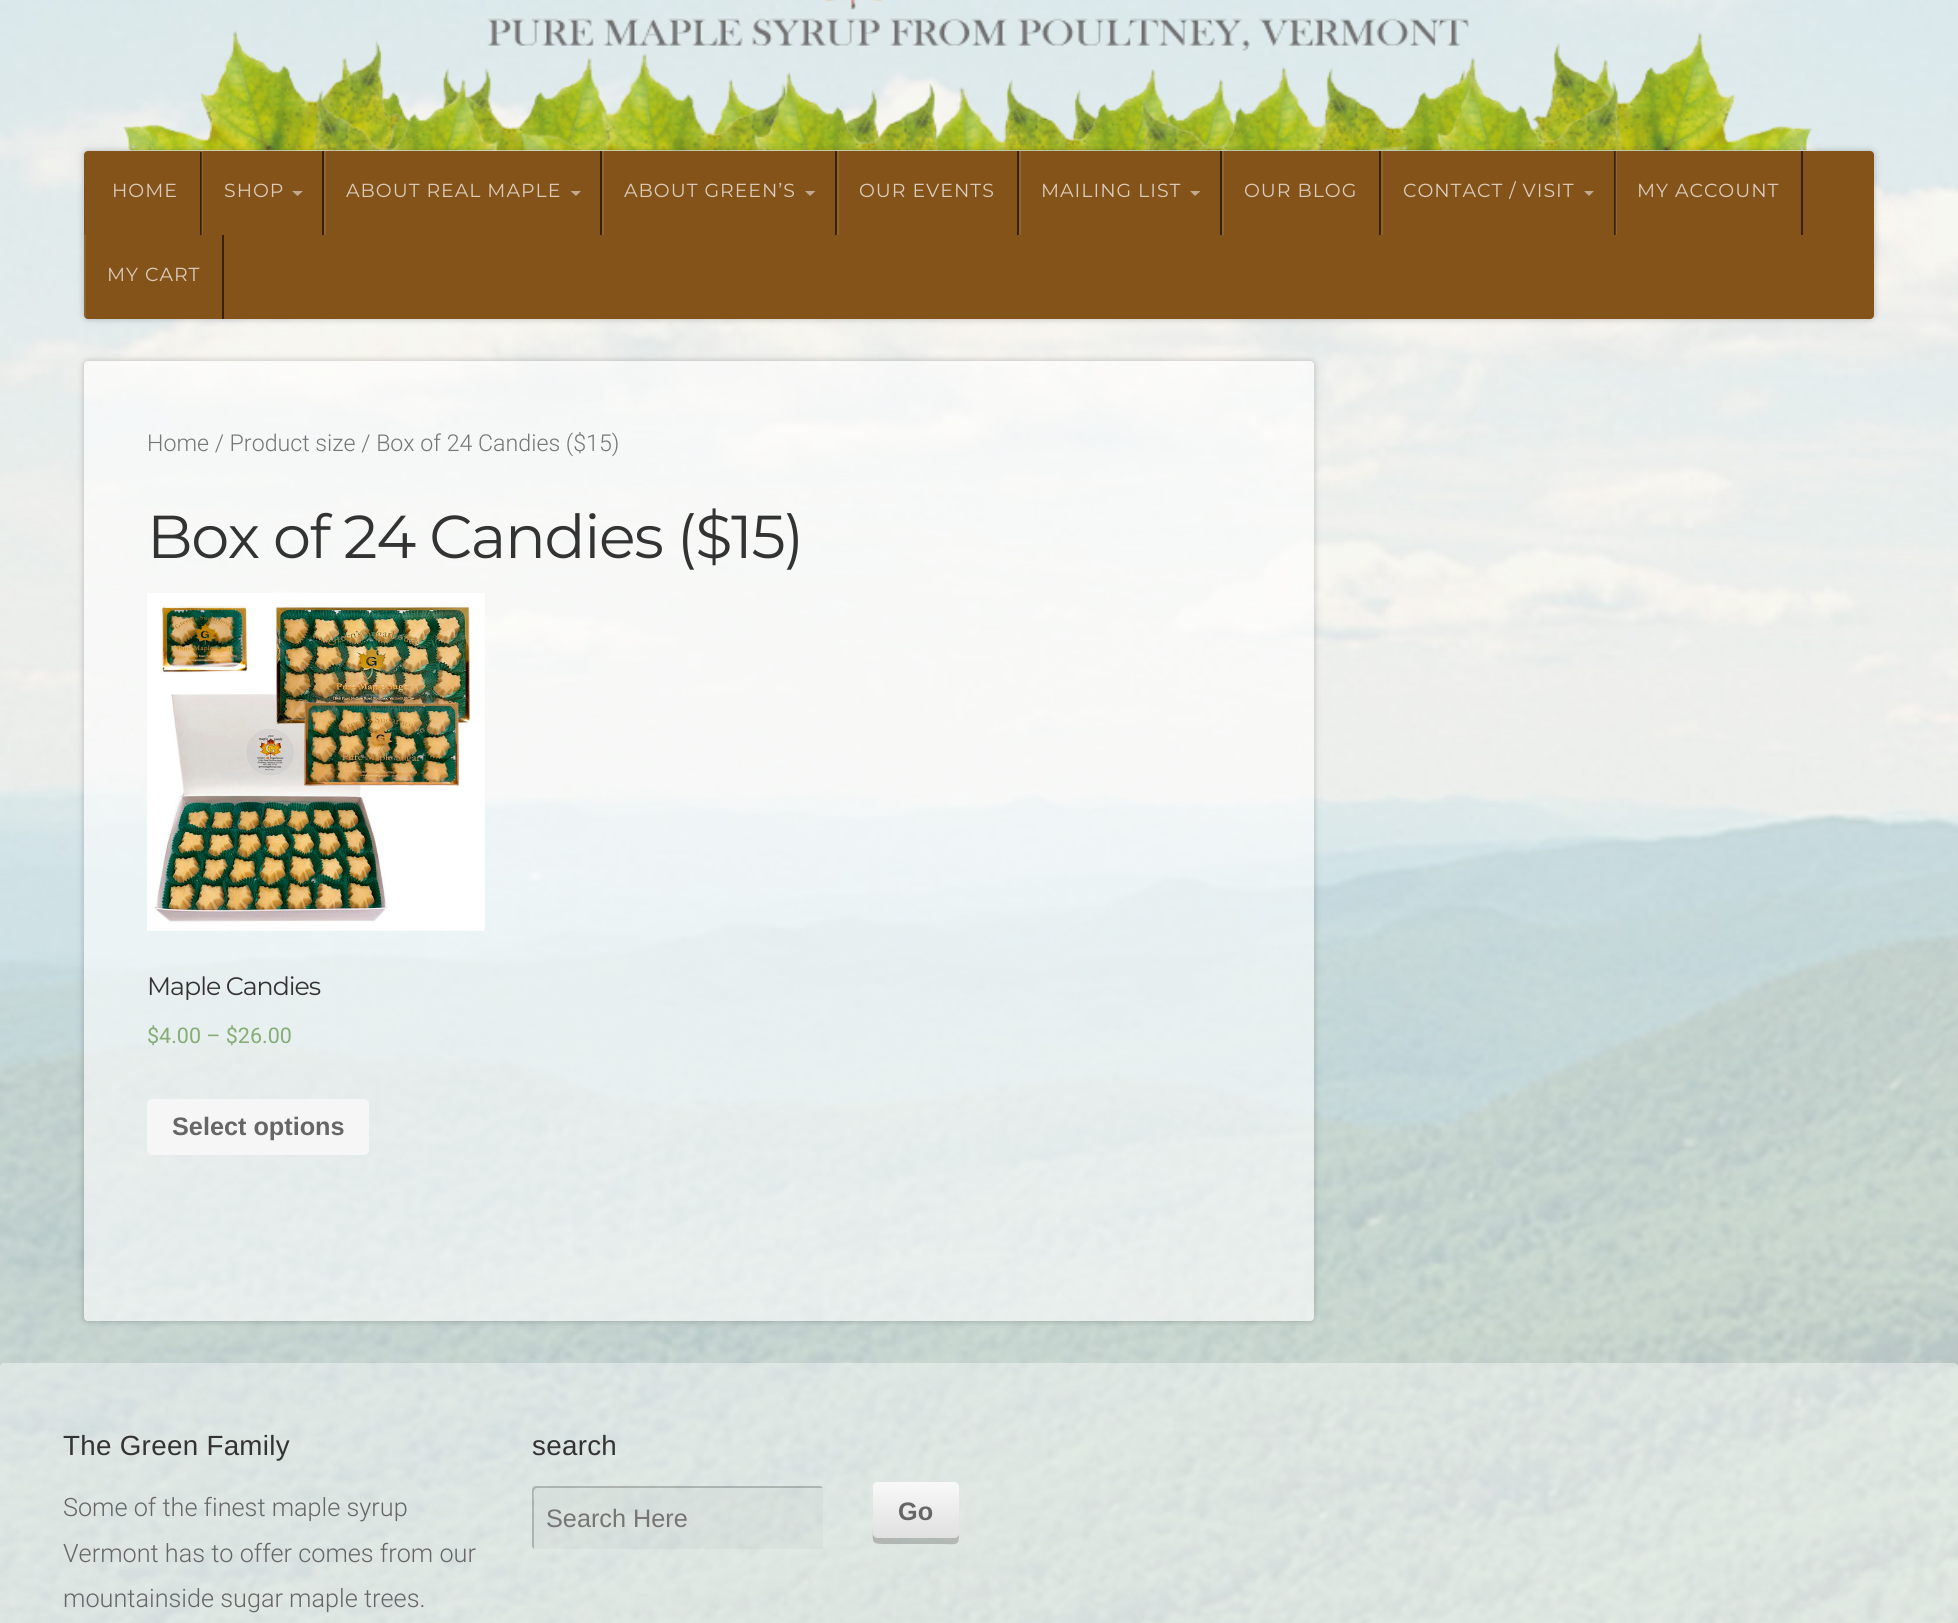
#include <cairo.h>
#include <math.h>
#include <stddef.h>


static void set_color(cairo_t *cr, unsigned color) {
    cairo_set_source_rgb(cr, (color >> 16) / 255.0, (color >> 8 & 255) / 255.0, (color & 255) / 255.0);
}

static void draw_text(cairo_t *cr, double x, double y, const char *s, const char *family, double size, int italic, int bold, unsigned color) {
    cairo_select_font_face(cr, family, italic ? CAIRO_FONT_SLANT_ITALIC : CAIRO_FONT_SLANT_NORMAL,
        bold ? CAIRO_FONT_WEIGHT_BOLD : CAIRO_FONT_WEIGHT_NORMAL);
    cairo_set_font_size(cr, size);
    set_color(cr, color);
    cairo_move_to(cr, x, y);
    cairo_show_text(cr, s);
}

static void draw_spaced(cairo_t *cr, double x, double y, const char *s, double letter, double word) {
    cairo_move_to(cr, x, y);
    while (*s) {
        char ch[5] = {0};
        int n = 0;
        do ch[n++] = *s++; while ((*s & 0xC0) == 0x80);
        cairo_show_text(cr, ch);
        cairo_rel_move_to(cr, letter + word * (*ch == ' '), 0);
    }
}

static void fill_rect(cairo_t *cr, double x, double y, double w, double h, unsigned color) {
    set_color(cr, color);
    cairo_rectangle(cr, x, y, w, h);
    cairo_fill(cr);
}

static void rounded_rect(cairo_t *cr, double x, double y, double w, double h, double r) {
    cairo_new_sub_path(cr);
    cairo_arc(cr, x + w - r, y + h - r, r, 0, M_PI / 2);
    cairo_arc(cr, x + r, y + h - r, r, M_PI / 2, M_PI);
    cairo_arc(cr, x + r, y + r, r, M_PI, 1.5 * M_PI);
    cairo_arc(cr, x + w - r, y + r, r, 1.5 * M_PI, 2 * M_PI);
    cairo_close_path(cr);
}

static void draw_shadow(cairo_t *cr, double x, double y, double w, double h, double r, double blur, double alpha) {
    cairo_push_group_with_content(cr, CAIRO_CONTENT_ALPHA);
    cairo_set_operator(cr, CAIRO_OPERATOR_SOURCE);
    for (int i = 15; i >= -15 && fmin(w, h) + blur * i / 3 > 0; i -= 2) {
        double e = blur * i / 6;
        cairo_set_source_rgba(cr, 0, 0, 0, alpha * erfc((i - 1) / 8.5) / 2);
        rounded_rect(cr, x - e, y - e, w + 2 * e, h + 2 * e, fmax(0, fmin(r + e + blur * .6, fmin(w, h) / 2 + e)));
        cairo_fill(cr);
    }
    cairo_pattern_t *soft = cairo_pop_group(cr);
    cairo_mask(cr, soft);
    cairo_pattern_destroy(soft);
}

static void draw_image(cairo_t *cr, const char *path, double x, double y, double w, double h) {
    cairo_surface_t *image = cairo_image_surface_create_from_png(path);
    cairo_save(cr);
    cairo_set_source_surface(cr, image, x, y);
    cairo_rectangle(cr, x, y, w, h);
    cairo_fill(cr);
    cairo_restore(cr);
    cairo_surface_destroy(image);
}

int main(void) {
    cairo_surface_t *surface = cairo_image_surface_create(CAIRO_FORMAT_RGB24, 1958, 1623);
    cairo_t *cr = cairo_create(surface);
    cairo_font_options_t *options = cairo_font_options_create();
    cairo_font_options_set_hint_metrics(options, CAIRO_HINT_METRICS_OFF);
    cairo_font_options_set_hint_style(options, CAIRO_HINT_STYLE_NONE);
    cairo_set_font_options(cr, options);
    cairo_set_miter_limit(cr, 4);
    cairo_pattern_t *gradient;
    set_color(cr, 0xFFFFFF);
    cairo_paint(cr);
    draw_image(cr, "assets/img1.png", 0, 0, 1958, 1623);
    draw_image(cr, "assets/img2.png", 123, 0, 1689, 151);
    set_color(cr, 0x000000);
    draw_shadow(cr, 84, 151, 1790, 168, 4, 3.5, 0.24);
    set_color(cr, 0x84531A);
    rounded_rect(cr, 84, 151, 1790, 168, 4);
    cairo_fill(cr);
    fill_rect(cr, 200, 152, 2, 83, 0x35210A);
    cairo_select_font_face(cr, "Montserrat", CAIRO_FONT_SLANT_NORMAL, CAIRO_FONT_WEIGHT_NORMAL);
    cairo_set_font_size(cr, 18.9);
    set_color(cr, 0xDACBBA);
    draw_spaced(cr, 112, 197, "HOME", 1, 0);
    fill_rect(cr, 322, 151, 2, 84, 0x35210A);
    cairo_set_source_rgba(cr, 1, 1, 1, 0.1);
    cairo_rectangle(cr, 201, 151, 2, 84);
    cairo_fill(cr);
    set_color(cr, 0xDACBBA);
    draw_spaced(cr, 224, 197, "SHOP", 1, 0);
    set_color(cr, 0xC2A98D);
    cairo_new_path(cr);
    cairo_move_to(cr, 292, 191);
    cairo_line_to(cr, 303, 191);
    cairo_line_to(cr, 297.5, 196);
    cairo_close_path(cr);
    cairo_fill(cr);
    fill_rect(cr, 600, 151, 2, 84, 0x35210A);
    fill_rect(cr, 324, 151, 2, 84, 0x906431);
    set_color(cr, 0xDACBBA);
    draw_spaced(cr, 346, 197, "ABOUT REAL MAPLE", 1, 0);
    set_color(cr, 0xC2A98D);
    cairo_new_path(cr);
    cairo_move_to(cr, 570.5, 191);
    cairo_line_to(cr, 581, 191);
    cairo_line_to(cr, 576, 196);
    cairo_close_path(cr);
    cairo_fill(cr);
    fill_rect(cr, 835, 151, 2, 84, 0x35210A);
    fill_rect(cr, 602, 151, 2, 84, 0x906431);
    set_color(cr, 0xDACBBA);
    draw_spaced(cr, 624, 197, "ABOUT GREEN’S", 1, 0);
    set_color(cr, 0xC2A98D);
    cairo_new_path(cr);
    cairo_move_to(cr, 805, 191);
    cairo_line_to(cr, 815.5, 191);
    cairo_line_to(cr, 810, 196);
    cairo_close_path(cr);
    cairo_fill(cr);
    fill_rect(cr, 1017, 151, 2, 84, 0x35210A);
    fill_rect(cr, 837, 151, 2, 84, 0x906431);
    set_color(cr, 0xDACBBA);
    draw_spaced(cr, 859, 197, "OUR EVENTS", 1, 0);
    fill_rect(cr, 1220, 151, 2, 84, 0x35210A);
    fill_rect(cr, 1019, 151, 2, 84, 0x906431);
    set_color(cr, 0xDACBBA);
    draw_spaced(cr, 1041, 197, "MAILING LIST", 1, 0);
    set_color(cr, 0xC2A98D);
    cairo_new_path(cr);
    cairo_move_to(cr, 1190, 191);
    cairo_line_to(cr, 1200.5, 191);
    cairo_line_to(cr, 1195, 196);
    cairo_close_path(cr);
    cairo_fill(cr);
    fill_rect(cr, 1379, 151, 2, 84, 0x35210A);
    fill_rect(cr, 1222, 151, 2, 84, 0x906431);
    set_color(cr, 0xDACBBA);
    draw_spaced(cr, 1244, 197, "OUR BLOG", 1, 0);
    fill_rect(cr, 1614, 151, 2, 84, 0x35210A);
    fill_rect(cr, 1381, 151, 2, 84, 0x906431);
    set_color(cr, 0xDACBBA);
    draw_spaced(cr, 1403, 197, "CONTACT / VISIT", 1, 0);
    set_color(cr, 0xC2A98D);
    cairo_new_path(cr);
    cairo_move_to(cr, 1584, 191);
    cairo_line_to(cr, 1594, 191);
    cairo_line_to(cr, 1589, 196);
    cairo_close_path(cr);
    cairo_fill(cr);
    fill_rect(cr, 1801, 151, 2, 84, 0x35210A);
    cairo_set_source_rgba(cr, 1, 1, 1, 0.1);
    cairo_rectangle(cr, 1615, 151, 2, 84);
    cairo_fill(cr);
    set_color(cr, 0xDACBBA);
    draw_spaced(cr, 1637, 197, "MY ACCOUNT", 1, 0);
    fill_rect(cr, 222, 235, 2, 84, 0x35210A);
    cairo_set_source_rgba(cr, 1, 1, 1, 0.1);
    cairo_rectangle(cr, 84, 235, 2, 84);
    cairo_fill(cr);
    set_color(cr, 0xDACBBA);
    draw_spaced(cr, 107, 281, "MY CART", 1, 0);
    cairo_save(cr);
    cairo_set_fill_rule(cr, CAIRO_FILL_RULE_EVEN_ODD);
    cairo_new_path(cr);
    cairo_move_to(cr, 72, 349);
    cairo_line_to(cr, 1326, 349);
    cairo_line_to(cr, 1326, 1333);
    cairo_line_to(cr, 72, 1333);
    cairo_close_path(cr);
    cairo_move_to(cr, 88, 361);
    cairo_line_to(cr, 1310, 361);
    cairo_curve_to(cr, 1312, 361, 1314, 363, 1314, 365);
    cairo_line_to(cr, 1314, 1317);
    cairo_curve_to(cr, 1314, 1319, 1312, 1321, 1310, 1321);
    cairo_line_to(cr, 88, 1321);
    cairo_curve_to(cr, 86, 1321, 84, 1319, 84, 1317);
    cairo_line_to(cr, 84, 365);
    cairo_curve_to(cr, 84, 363, 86, 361, 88, 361);
    cairo_close_path(cr);
    cairo_clip(cr);
    set_color(cr, 0x000000);
    draw_shadow(cr, 84, 361, 1230, 960, 4, 3.5, 0.24);
    cairo_restore(cr);
    cairo_set_source_rgba(cr, 1, 1, 1, 0.6);
    rounded_rect(cr, 84, 361, 1230, 960, 4);
    cairo_fill(cr);
    draw_text(cr, 147, 451, "Home / Product size / Box of 24 Candies ($15)", "Roboto Light", 23.2, 0, 0, 0x757575);
    cairo_select_font_face(cr, "Montserrat", CAIRO_FONT_SLANT_NORMAL, CAIRO_FONT_WEIGHT_NORMAL);
    cairo_set_font_size(cr, 60.5);
    set_color(cr, 0x333333);
    draw_spaced(cr, 147, 558, "Box of 24 Candies ($15)", -1.4, 0);
    draw_image(cr, "assets/img3.png", 147, 593, 338, 338);
    cairo_set_font_size(cr, 25.25);
    draw_spaced(cr, 147, 995, "Maple Candies", -1, 0);
    draw_text(cr, 147, 1043, "$4.00 – $26.00", "Roboto", 21.5, 0, 0, 0x85AD74);
    set_color(cr, 0xF7F6F7);
    rounded_rect(cr, 147, 1099, 222, 56, 5);
    cairo_fill(cr);
    draw_text(cr, 172, 1135, "Select options", "Liberation Sans", 25.25, 0, 1, 0x666666);
    cairo_set_source_rgba(cr, 1, 1, 1, 0.4);
    cairo_new_path(cr);
    cairo_move_to(cr, 4, 1363);
    cairo_line_to(cr, 1954, 1363);
    cairo_curve_to(cr, 1956, 1363, 1958, 1365, 1958, 1367);
    cairo_line_to(cr, 1958, 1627);
    cairo_line_to(cr, 0, 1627);
    cairo_line_to(cr, 0, 1367);
    cairo_curve_to(cr, 0, 1365, 2, 1363, 4, 1363);
    cairo_close_path(cr);
    cairo_fill(cr);
    cairo_select_font_face(cr, "Liberation Sans", CAIRO_FONT_SLANT_NORMAL, CAIRO_FONT_WEIGHT_NORMAL);
    cairo_set_font_size(cr, 27.75);
    set_color(cr, 0x333333);
    draw_spaced(cr, 63, 1455, "The Green Family", 0.3, 0);
    draw_text(cr, 63, 1516, "Some of the finest maple syrup", "Roboto Light", 25.25, 0, 0, 0x666666);
    draw_text(cr, 63, 1562, "Vermont has to offer comes from our", "Roboto Light", 25.25, 0, 0, 0x666666);
    draw_text(cr, 63, 1607, "mountainside sugar maple trees.", "Roboto Light", 25.25, 0, 0, 0x666666);
    cairo_select_font_face(cr, "Liberation Sans", CAIRO_FONT_SLANT_NORMAL, CAIRO_FONT_WEIGHT_NORMAL);
    cairo_set_font_size(cr, 27.75);
    set_color(cr, 0x333333);
    draw_spaced(cr, 532, 1455, "search", 0.3, 0);
    cairo_set_source_rgba(cr, 0, 0, 0, 0.03);
    cairo_rectangle(cr, 532, 1486, 291, 63);
    cairo_fill(cr);
    cairo_set_source_rgba(cr, 0, 0, 0, 0.2);
    cairo_new_path(cr);
    cairo_move_to(cr, 537, 1488);
    cairo_line_to(cr, 823, 1488);
    cairo_curve_to(cr, 822, 1487, 821, 1486, 819, 1486);
    cairo_line_to(cr, 536, 1486);
    cairo_curve_to(cr, 534, 1486, 532, 1488, 532, 1490);
    cairo_line_to(cr, 532, 1545);
    cairo_curve_to(cr, 532, 1547, 533, 1548, 534, 1549);
    cairo_line_to(cr, 534, 1500);
    cairo_curve_to(cr, 534, 1499, 532, 1488, 537, 1488);
    cairo_close_path(cr);
    cairo_fill(cr);
    draw_text(cr, 546, 1527, "Search Here", "Liberation Sans", 25.25, 0, 0, 0x757575);
    cairo_set_source_rgba(cr, 0, 0, 0, 0.2);
    cairo_new_path(cr);
    cairo_move_to(cr, 873, 1491);
    cairo_line_to(cr, 873, 1524);
    cairo_curve_to(cr, 873, 1545, 869, 1544, 891, 1544);
    cairo_line_to(cr, 941, 1544);
    cairo_curve_to(cr, 957, 1544, 959, 1547, 959, 1533);
    cairo_curve_to(cr, 959, 1536, 957, 1538, 954, 1538);
    cairo_line_to(cr, 878, 1538);
    cairo_curve_to(cr, 876, 1538, 873, 1536, 873, 1533);
    cairo_close_path(cr);
    cairo_fill(cr);
    set_color(cr, 0xF9F9F9);
    rounded_rect(cr, 873, 1482, 86, 56, 5);
    cairo_fill(cr);
    gradient = cairo_pattern_create_linear(916, 1482, 916, 1538);
    cairo_pattern_add_color_stop_rgba(gradient, 0, 0, 0, 0, 0);
    cairo_pattern_add_color_stop_rgba(gradient, 1, 0, 0, 0, 0.1);
    cairo_set_source(cr, gradient);
    cairo_pattern_destroy(gradient);
    rounded_rect(cr, 873, 1482, 86, 56, 5);
    cairo_fill(cr);
    draw_text(cr, 898, 1520, "Go", "Liberation Sans", 25.25, 0, 1, 0x666666);
    cairo_surface_write_to_png(surface, "output.png");
    cairo_font_options_destroy(options);
    cairo_destroy(cr);
    cairo_surface_destroy(surface);
    return 0;
}
